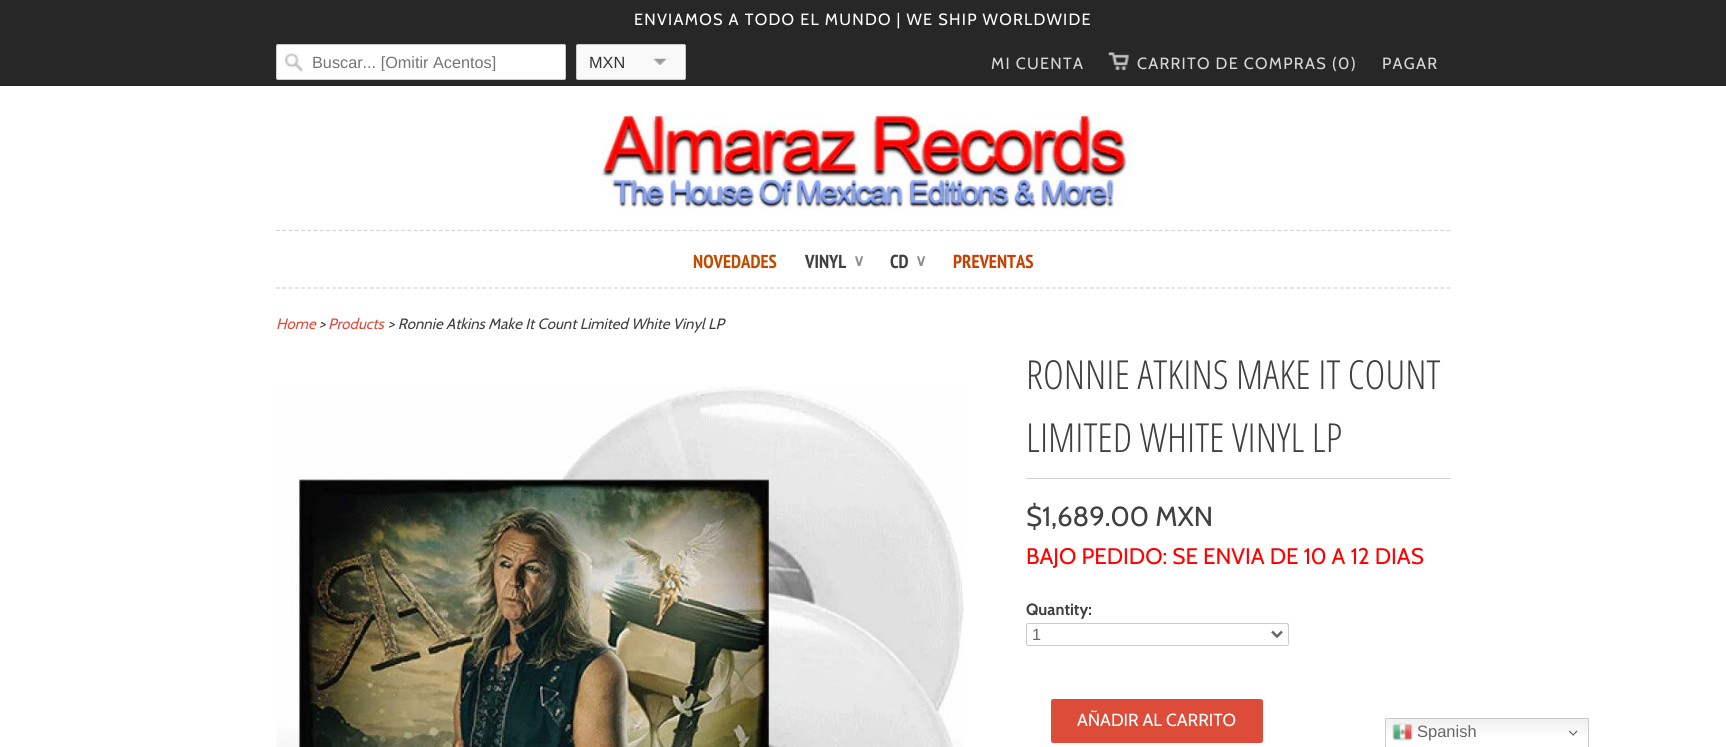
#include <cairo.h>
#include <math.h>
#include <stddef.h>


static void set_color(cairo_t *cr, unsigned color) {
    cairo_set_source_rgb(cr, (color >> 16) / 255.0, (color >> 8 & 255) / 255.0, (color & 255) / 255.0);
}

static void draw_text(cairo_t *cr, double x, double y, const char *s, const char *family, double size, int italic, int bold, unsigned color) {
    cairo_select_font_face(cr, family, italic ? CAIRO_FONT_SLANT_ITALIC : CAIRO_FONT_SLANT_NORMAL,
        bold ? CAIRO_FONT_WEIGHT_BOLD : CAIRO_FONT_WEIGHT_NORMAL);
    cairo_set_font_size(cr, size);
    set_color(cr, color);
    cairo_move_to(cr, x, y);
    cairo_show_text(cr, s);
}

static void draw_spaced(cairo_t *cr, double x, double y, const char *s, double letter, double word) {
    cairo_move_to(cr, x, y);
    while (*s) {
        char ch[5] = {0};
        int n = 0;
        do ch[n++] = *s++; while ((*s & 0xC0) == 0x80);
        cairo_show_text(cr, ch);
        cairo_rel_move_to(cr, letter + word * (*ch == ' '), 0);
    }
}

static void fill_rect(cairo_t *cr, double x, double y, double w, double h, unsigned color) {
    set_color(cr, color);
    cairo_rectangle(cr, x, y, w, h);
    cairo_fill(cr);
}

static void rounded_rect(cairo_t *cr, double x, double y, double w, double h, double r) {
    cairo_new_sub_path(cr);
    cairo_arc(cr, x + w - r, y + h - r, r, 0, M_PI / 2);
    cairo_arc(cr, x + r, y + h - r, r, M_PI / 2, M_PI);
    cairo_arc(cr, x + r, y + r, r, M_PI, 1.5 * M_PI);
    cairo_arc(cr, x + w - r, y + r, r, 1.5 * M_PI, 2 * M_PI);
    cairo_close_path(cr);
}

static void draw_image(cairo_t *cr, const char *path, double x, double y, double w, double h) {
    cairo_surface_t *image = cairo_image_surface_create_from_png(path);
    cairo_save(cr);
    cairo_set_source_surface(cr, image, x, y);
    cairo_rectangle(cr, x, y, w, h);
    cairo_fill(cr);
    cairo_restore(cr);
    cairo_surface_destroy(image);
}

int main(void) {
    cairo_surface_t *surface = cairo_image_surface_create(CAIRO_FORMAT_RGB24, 1726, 747);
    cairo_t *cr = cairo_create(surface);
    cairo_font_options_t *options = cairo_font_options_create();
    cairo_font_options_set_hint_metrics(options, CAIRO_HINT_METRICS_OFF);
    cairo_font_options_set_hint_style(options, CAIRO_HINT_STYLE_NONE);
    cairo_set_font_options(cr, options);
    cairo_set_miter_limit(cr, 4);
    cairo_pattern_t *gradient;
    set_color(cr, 0xFFFFFF);
    cairo_paint(cr);
    fill_rect(cr, 0, 0, 1726, 86, 0x272727);
    cairo_select_font_face(cr, "Cabin", CAIRO_FONT_SLANT_NORMAL, CAIRO_FONT_WEIGHT_NORMAL);
    cairo_set_font_size(cr, 16.25);
    set_color(cr, 0xFFFFFF);
    draw_spaced(cr, 634, 25, "ENVIAMOS A TODO EL MUNDO | WE SHIP WORLDWIDE", 1.25, 0);
    rounded_rect(cr, 276, 44, 290, 36, 2.5);
    cairo_fill(cr);
    draw_image(cr, "assets/img1.png", 285, 53, 18, 19);
    rounded_rect(cr, 276.5, 44.5, 289, 35, 2);
    set_color(cr, 0xCCCCCC);
    cairo_set_line_width(cr, 1);
    cairo_stroke(cr);
    cairo_save(cr);
    cairo_rectangle(cr, 313, 53, 247, 18);
    cairo_clip(cr);
    draw_text(cr, 312, 68, "Buscar... [Omitir Acentos]", "Liberation Sans", 16.25, 0, 0, 0x757575);
    cairo_restore(cr);
    set_color(cr, 0xF9F9F9);
    rounded_rect(cr, 576, 44, 110, 36, 2.5);
    cairo_fill(cr);
    draw_image(cr, "assets/img2.png", 653, 58, 14, 7);
    rounded_rect(cr, 576.5, 44.5, 109, 35, 2);
    set_color(cr, 0xCCCCCC);
    cairo_stroke(cr);
    draw_text(cr, 589, 68, "MXN", "Liberation Sans", 16.25, 0, 0, 0x333333);
    cairo_select_font_face(cr, "Cabin", CAIRO_FONT_SLANT_NORMAL, CAIRO_FONT_WEIGHT_NORMAL);
    set_color(cr, 0xD8D8D8);
    draw_spaced(cr, 991, 69, "MI CUENTA", 1.25, 0);
    draw_image(cr, "assets/img3.png", 1108, 52, 21, 19);
    draw_spaced(cr, 1137, 69, "CARRITO DE COMPRAS (0)", 1.25, 0);
    draw_spaced(cr, 1382, 69, "PAGAR", 1.25, 0);
    draw_image(cr, "assets/img4.png", 601, 114, 531, 96);
    cairo_new_path(cr);
    cairo_move_to(cr, 276, 230.5);
    cairo_line_to(cr, 1451, 230.5);
    set_color(cr, 0xD3D3D3);
    cairo_set_line_width(cr, 1.2);
    cairo_set_dash(cr, (double[]){3.75, 2.51}, 2, 0);
    cairo_stroke(cr);
    cairo_new_path(cr);
    cairo_move_to(cr, 276, 288);
    cairo_line_to(cr, 1451, 288);
    cairo_stroke(cr);
    draw_text(cr, 693, 268, "NOVEDADES", "PT Sans Narrow", 18.75, 0, 1, 0xC44A00);
    draw_text(cr, 805, 268, "VINYL", "PT Sans Narrow", 18.75, 0, 1, 0x404040);
    draw_text(cr, 853, 266, "∨", "DejaVu Sans", 16, 0, 1, 0x8C8C8C);
    draw_text(cr, 890, 268, "CD", "PT Sans Narrow", 18.75, 0, 1, 0x404040);
    draw_text(cr, 915, 266, "∨", "DejaVu Sans", 16, 0, 1, 0x8C8C8C);
    draw_text(cr, 953, 268, "PREVENTAS", "PT Sans Narrow", 18.75, 0, 1, 0xC94000);
    draw_text(cr, 276, 329, "Home", "Cabin", 15, 1, 0, 0xDD4B39);
    draw_text(cr, 319, 329, ">", "Cabin", 15, 1, 0, 0x404040);
    draw_text(cr, 328, 329, "Products", "Cabin", 15, 1, 0, 0xDD4B39);
    draw_text(cr, 388, 329, "> Ronnie Atkins Make It Count Limited White Vinyl LP", "Cabin", 15, 1, 0, 0x404040);
    draw_image(cr, "assets/img5.png", 276, 386, 688, 361);
    fill_rect(cr, 1026, 478, 425, 1, 0xD3D3D3);
    draw_text(cr, 1026, 389, "RONNIE ATKINS MAKE IT COUNT", "Open Sans Condensed Light", 40, 0, 0, 0x404040);
    draw_text(cr, 1026, 452, "LIMITED WHITE VINYL LP", "Open Sans Condensed Light", 40, 0, 0, 0x404040);
    draw_text(cr, 1026, 526, "$1,689.00 MXN", "Cabin", 27.5, 0, 0, 0x404040);
    draw_text(cr, 1026, 564, "BAJO PEDIDO: SE ENVIA DE 10 A 12 DIAS", "Cabin", 22.5, 0, 0, 0xFF0000);
    draw_text(cr, 1026, 615, "Quantity:", "Cabin", 16.25, 0, 1, 0x404040);
    rounded_rect(cr, 1026.5, 623.5, 262, 22, 2);
    set_color(cr, 0xCCCCCC);
    cairo_set_line_width(cr, 1);
    cairo_set_dash(cr, NULL, 0, 0);
    cairo_stroke(cr);
    cairo_new_path(cr);
    cairo_move_to(cr, 1272, 631.5);
    cairo_line_to(cr, 1277, 636.5);
    cairo_line_to(cr, 1282, 631.5);
    set_color(cr, 0x666666);
    cairo_set_line_width(cr, 2.5);
    cairo_stroke(cr);
    draw_text(cr, 1032, 640, "1", "Liberation Sans", 16.25, 0, 0, 0x666666);
    set_color(cr, 0xDD4B39);
    rounded_rect(cr, 1051, 699, 212, 44, 2.5);
    cairo_fill(cr);
    draw_text(cr, 1077, 726, "AÑADIR AL CARRITO", "Cabin", 17.5, 0, 0, 0xFFFFFF);
    gradient = cairo_pattern_create_linear(1487, 718, 1487, 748);
    cairo_pattern_add_color_stop_rgba(gradient, 0, 0.937, 0.937, 0.937, 1);
    cairo_pattern_add_color_stop_rgba(gradient, 0.7, 1, 1, 1, 1);
    cairo_set_source(cr, gradient);
    cairo_pattern_destroy(gradient);
    cairo_rectangle(cr, 1386, 719, 202, 17);
    cairo_fill(cr);
    cairo_rectangle(cr, 1385.5, 718.5, 203, 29);
    set_color(cr, 0xCCCCCC);
    cairo_set_line_width(cr, 1);
    cairo_stroke(cr);
    draw_image(cr, "assets/img6.png", 1392, 723, 21, 18);
    draw_text(cr, 1417, 737, "Spanish", "Liberation Sans", 16.5, 0, 0, 0x666666);
    draw_image(cr, "assets/img7.png", 1569, 730, 9, 6);
    cairo_surface_write_to_png(surface, "output.png");
    cairo_font_options_destroy(options);
    cairo_destroy(cr);
    cairo_surface_destroy(surface);
    return 0;
}
